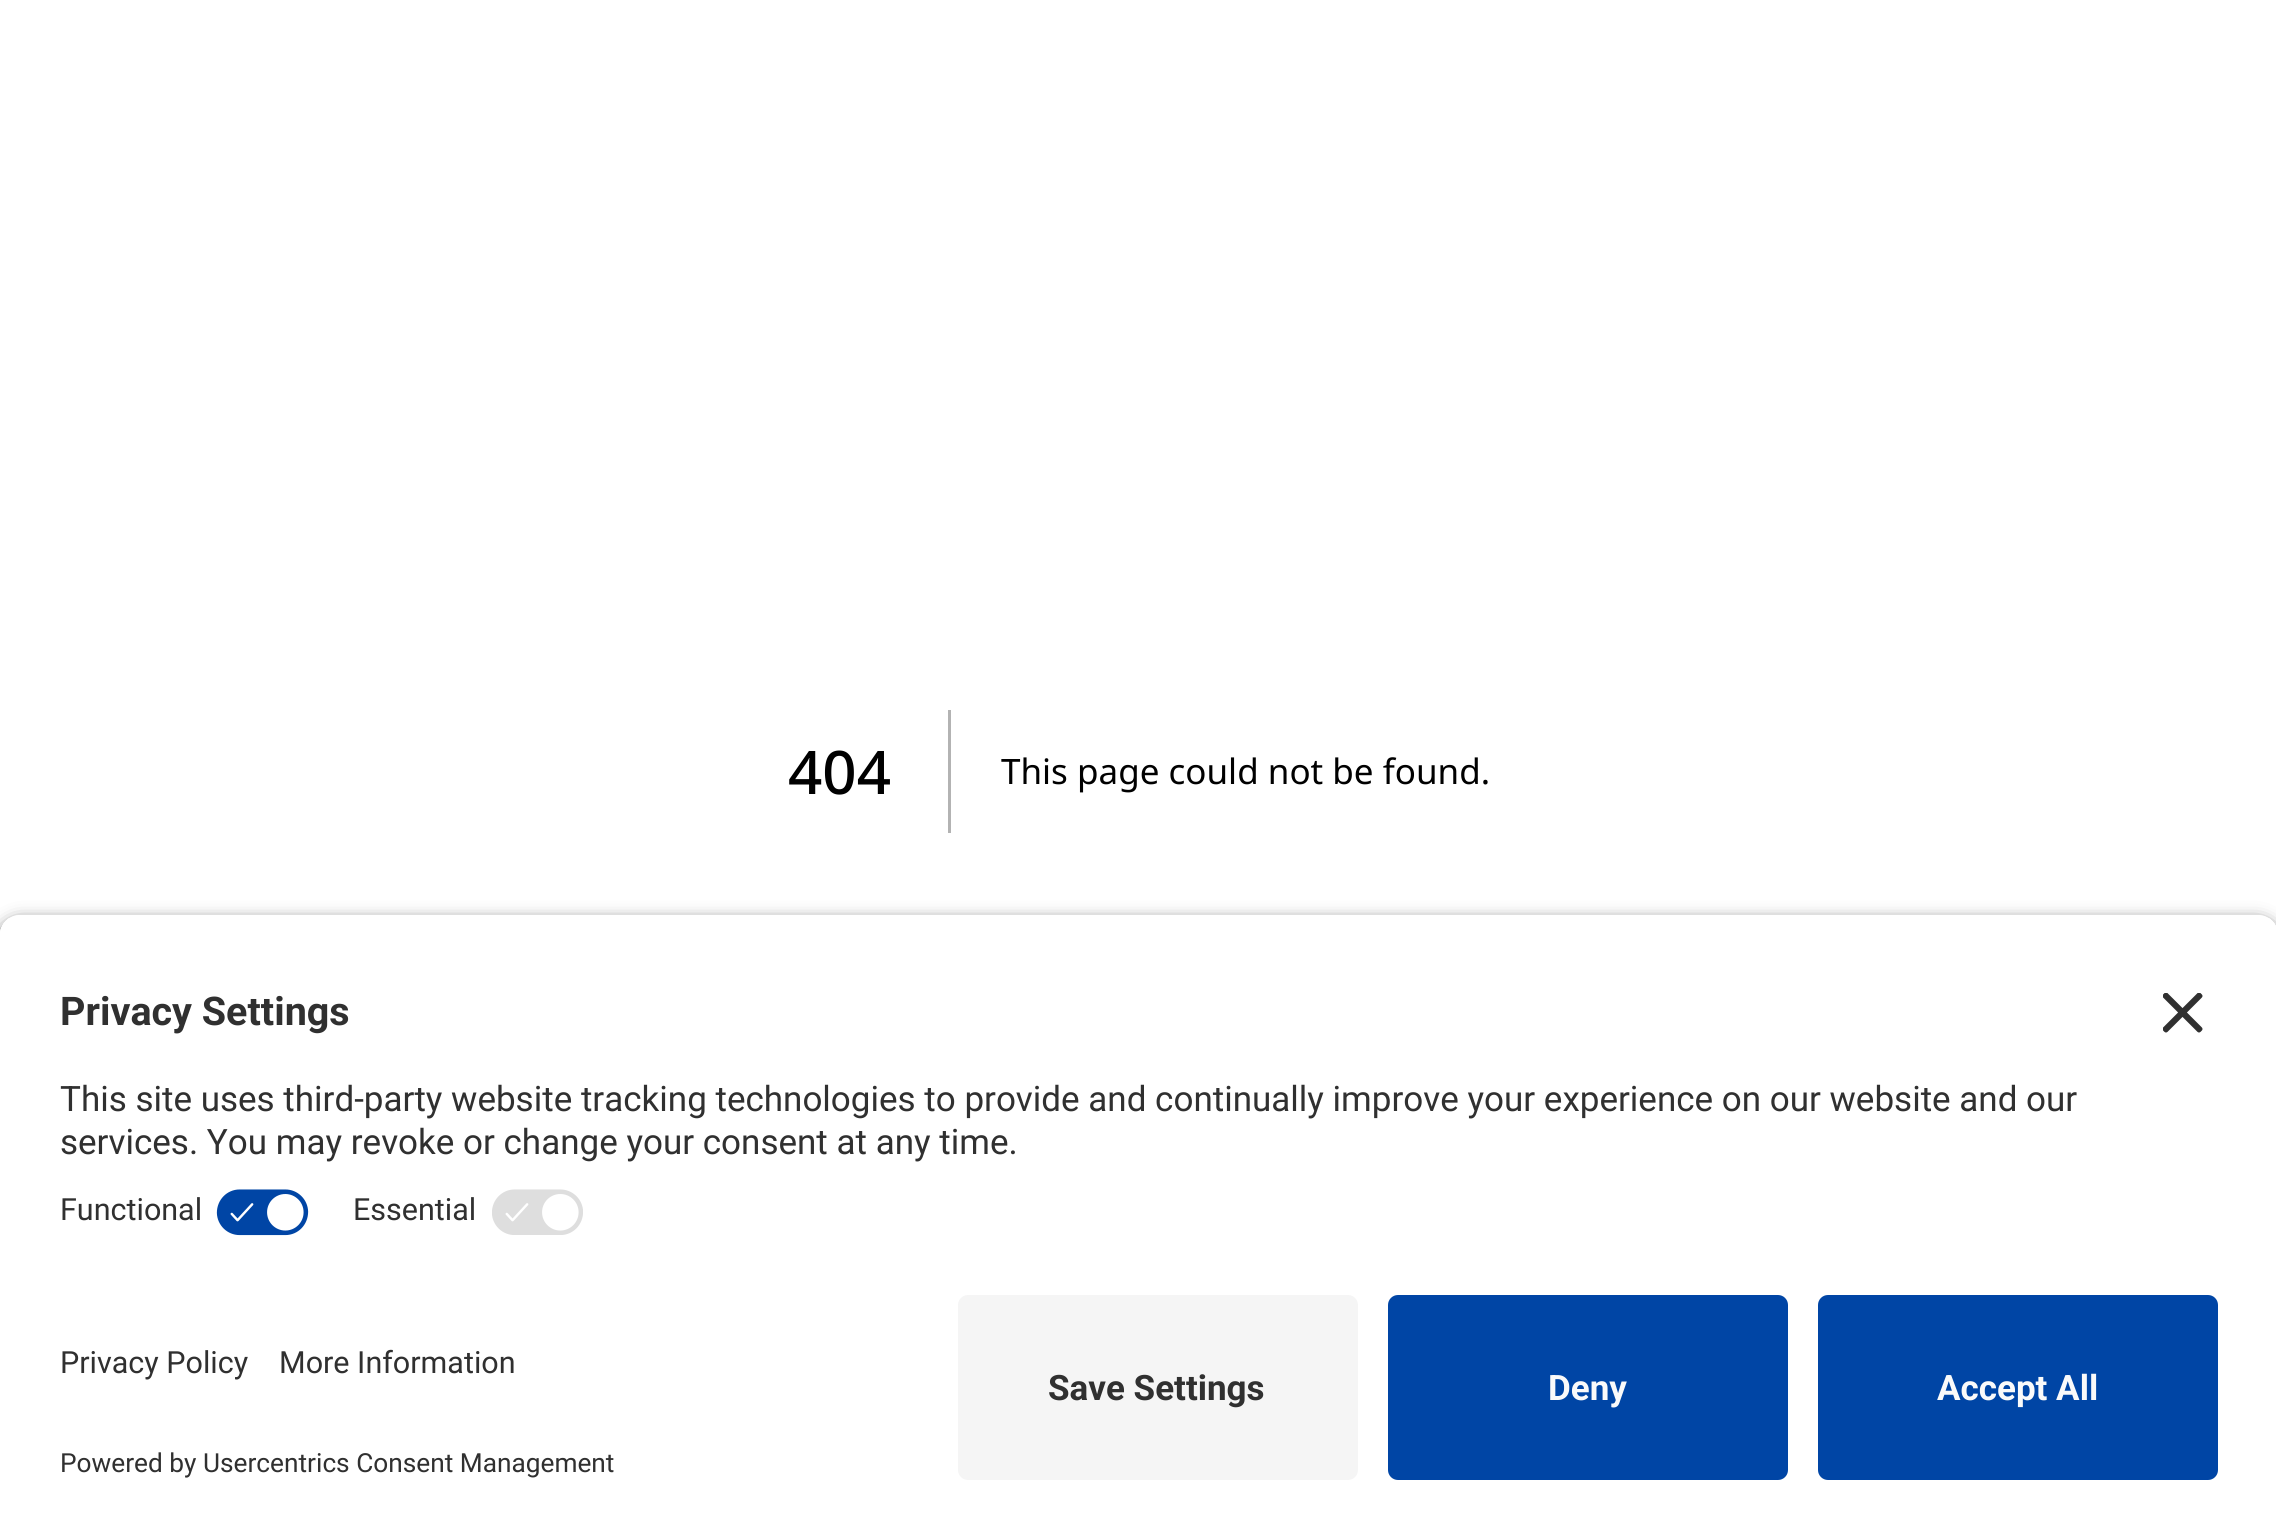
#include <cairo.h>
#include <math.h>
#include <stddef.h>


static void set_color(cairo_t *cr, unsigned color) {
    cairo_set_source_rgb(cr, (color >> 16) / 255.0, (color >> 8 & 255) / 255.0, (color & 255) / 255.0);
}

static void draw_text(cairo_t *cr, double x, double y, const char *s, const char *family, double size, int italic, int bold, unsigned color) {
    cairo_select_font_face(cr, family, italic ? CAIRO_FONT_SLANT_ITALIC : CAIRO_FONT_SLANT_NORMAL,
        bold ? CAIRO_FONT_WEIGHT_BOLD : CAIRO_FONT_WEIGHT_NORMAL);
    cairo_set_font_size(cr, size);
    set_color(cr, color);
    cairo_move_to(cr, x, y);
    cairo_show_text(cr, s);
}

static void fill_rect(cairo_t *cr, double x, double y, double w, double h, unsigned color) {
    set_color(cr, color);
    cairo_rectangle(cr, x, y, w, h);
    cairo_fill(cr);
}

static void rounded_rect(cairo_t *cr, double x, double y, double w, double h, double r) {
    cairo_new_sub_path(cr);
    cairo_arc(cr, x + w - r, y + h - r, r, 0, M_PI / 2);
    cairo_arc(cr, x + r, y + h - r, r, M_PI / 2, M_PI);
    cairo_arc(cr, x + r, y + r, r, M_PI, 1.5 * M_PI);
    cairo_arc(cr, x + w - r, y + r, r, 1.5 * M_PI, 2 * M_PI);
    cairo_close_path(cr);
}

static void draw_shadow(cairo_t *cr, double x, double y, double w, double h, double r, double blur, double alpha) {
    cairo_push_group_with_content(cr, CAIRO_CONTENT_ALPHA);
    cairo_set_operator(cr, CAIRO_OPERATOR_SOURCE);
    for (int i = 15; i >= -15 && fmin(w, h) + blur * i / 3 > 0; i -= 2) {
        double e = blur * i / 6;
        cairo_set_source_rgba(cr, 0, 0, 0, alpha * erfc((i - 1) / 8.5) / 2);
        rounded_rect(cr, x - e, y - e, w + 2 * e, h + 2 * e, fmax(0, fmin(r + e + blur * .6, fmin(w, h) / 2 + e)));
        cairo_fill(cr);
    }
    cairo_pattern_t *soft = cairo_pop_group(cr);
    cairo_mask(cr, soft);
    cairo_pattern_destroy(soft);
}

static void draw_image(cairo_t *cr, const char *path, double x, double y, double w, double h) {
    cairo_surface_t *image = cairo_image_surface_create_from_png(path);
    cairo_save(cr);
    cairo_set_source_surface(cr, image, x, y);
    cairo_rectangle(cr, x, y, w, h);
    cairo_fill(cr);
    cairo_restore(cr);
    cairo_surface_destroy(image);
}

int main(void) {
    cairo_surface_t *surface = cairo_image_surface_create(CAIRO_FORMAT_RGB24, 2276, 1538);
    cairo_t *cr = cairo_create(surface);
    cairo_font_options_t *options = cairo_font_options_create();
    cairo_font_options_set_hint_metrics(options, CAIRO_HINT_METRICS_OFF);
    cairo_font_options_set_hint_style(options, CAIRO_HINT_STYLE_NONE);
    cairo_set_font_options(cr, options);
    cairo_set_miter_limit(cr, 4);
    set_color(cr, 0xFFFFFF);
    cairo_paint(cr);
    fill_rect(cr, 948, 710, 3, 123, 0xB3B3B3);
    draw_text(cr, 788, 794, "404", "Noto Sans Medium", 60, 0, 0, 0x000000);
    draw_text(cr, 1001, 784, "This page could not be found.", "Noto Sans", 35, 0, 0, 0x000000);
    cairo_save(cr);
    cairo_set_fill_rule(cr, CAIRO_FILL_RULE_EVEN_ODD);
    cairo_new_path(cr);
    cairo_move_to(cr, 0, 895);
    cairo_line_to(cr, 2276, 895);
    cairo_line_to(cr, 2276, 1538);
    cairo_line_to(cr, 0, 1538);
    cairo_close_path(cr);
    cairo_move_to(cr, 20, 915);
    cairo_line_to(cr, 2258, 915);
    cairo_curve_to(cr, 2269, 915, 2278, 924, 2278, 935);
    cairo_line_to(cr, 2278, 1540);
    cairo_line_to(cr, 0, 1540);
    cairo_line_to(cr, 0, 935);
    cairo_curve_to(cr, 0, 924, 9, 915, 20, 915);
    cairo_close_path(cr);
    cairo_clip(cr);
    set_color(cr, 0x000000);
    draw_shadow(cr, 0, 923, 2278, 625, 20, 9, 0.8);
    cairo_restore(cr);
    cairo_save(cr);
    cairo_new_path(cr);
    cairo_move_to(cr, 20, 915);
    cairo_line_to(cr, 2258, 915);
    cairo_curve_to(cr, 2269, 915, 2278, 924, 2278, 935);
    cairo_line_to(cr, 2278, 1275);
    cairo_line_to(cr, 0, 1275);
    cairo_line_to(cr, 0, 935);
    cairo_curve_to(cr, 0, 924, 9, 915, 20, 915);
    cairo_close_path(cr);
    cairo_clip(cr);
    fill_rect(cr, 0, 918, 2276, 357, 0xFFFFFF);
    fill_rect(cr, 0, 918, 2276, 257, 0xFFFFFF);
    cairo_restore(cr);
    draw_text(cr, 60, 1025, "Privacy Settings", "Roboto", 39.5, 0, 1, 0x303030);
    draw_image(cr, "assets/img1.png", 2163, 993, 40, 40);
    draw_text(cr, 60, 1111, "This site uses third-party website tracking technologies to provide and continually improve your experience on our website and our", "Roboto", 35, 0, 0, 0x303030);
    draw_text(cr, 60, 1154, "services. You may revoke or change your consent at any time.", "Roboto", 35, 0, 0, 0x303030);
    draw_text(cr, 60, 1220, "Functional", "Roboto", 30.5, 0, 0, 0x303030);
    draw_image(cr, "assets/img2.png", 216, 1189, 93, 47);
    draw_text(cr, 353, 1220, "Essential", "Roboto", 30.5, 0, 0, 0x303030);
    draw_image(cr, "assets/img3.png", 492, 1189, 91, 46);
    draw_text(cr, 60, 1373, "Privacy Policy", "Roboto", 30.5, 0, 0, 0x303030);
    draw_text(cr, 279, 1373, "More Information", "Roboto", 30.5, 0, 0, 0x303030);
    draw_text(cr, 60, 1472, "Powered by Usercentrics Consent Management", "Roboto", 26.25, 0, 0, 0x303030);
    set_color(cr, 0xF5F5F5);
    rounded_rect(cr, 958, 1295, 400, 185, 10);
    cairo_fill(cr);
    draw_text(cr, 1048, 1400, "Save Settings", "Roboto", 35, 0, 1, 0x303030);
    set_color(cr, 0x0045A5);
    rounded_rect(cr, 1388, 1295, 400, 185, 10);
    cairo_fill(cr);
    draw_text(cr, 1548, 1400, "Deny", "Roboto", 35, 0, 1, 0xFAFAFA);
    set_color(cr, 0x0045A5);
    rounded_rect(cr, 1818, 1295, 400, 185, 10);
    cairo_fill(cr);
    draw_text(cr, 1937, 1400, "Accept All", "Roboto", 35, 0, 1, 0xFAFAFA);
    cairo_surface_write_to_png(surface, "output.png");
    cairo_font_options_destroy(options);
    cairo_destroy(cr);
    cairo_surface_destroy(surface);
    return 0;
}
